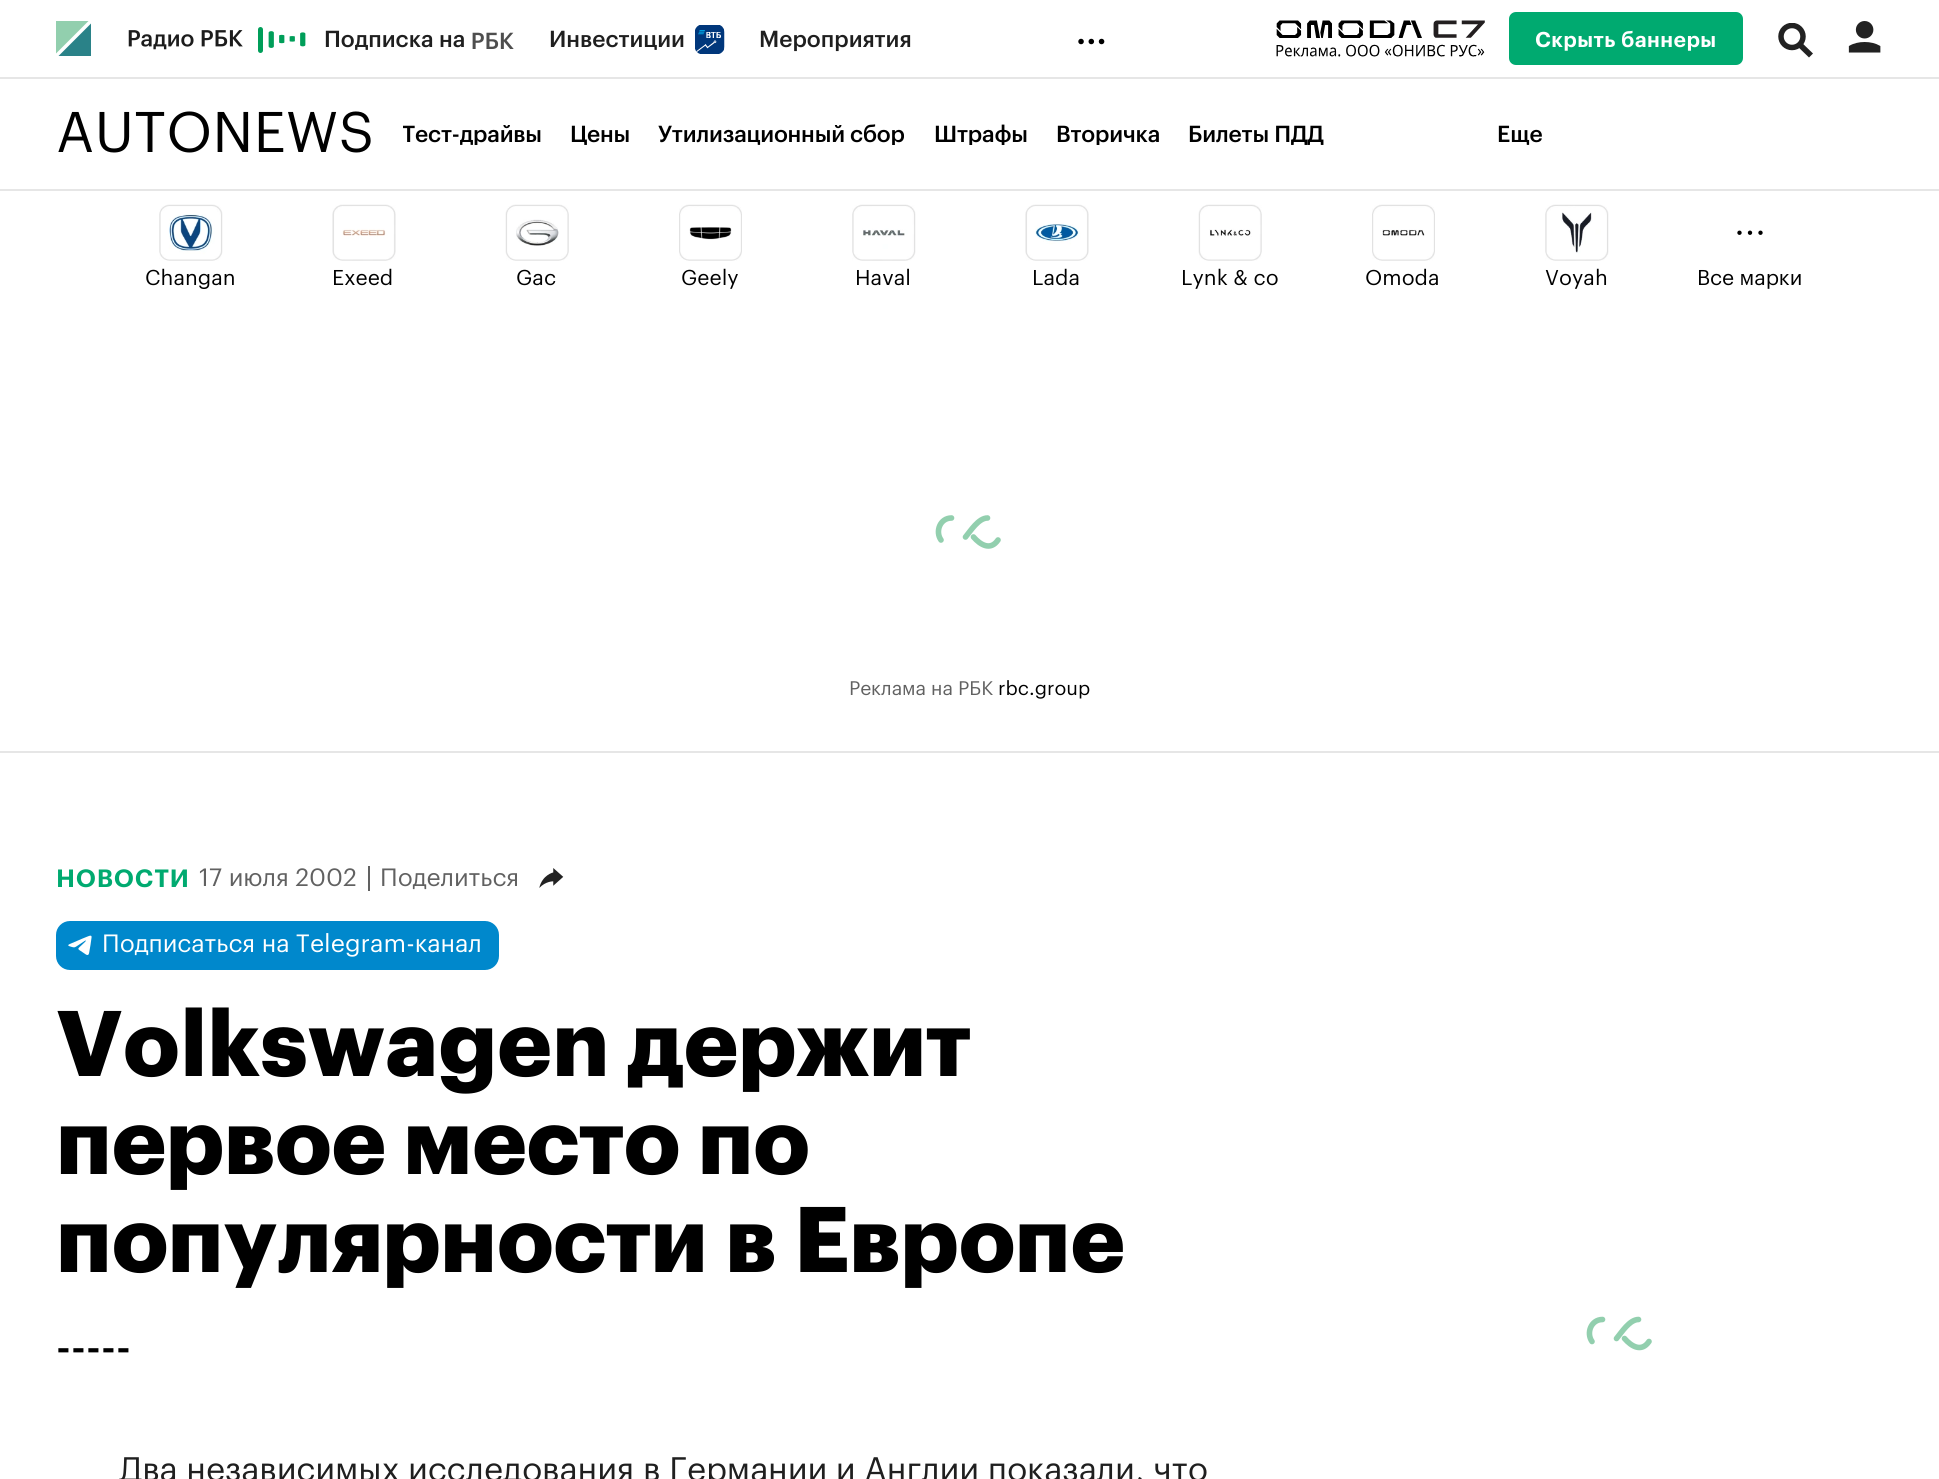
#include <cairo.h>
#include <math.h>
#include <stddef.h>


static void set_color(cairo_t *cr, unsigned color) {
    cairo_set_source_rgb(cr, (color >> 16) / 255.0, (color >> 8 & 255) / 255.0, (color & 255) / 255.0);
}

static void draw_text(cairo_t *cr, double x, double y, const char *s, const char *family, double size, int italic, int bold, unsigned color) {
    cairo_select_font_face(cr, family, italic ? CAIRO_FONT_SLANT_ITALIC : CAIRO_FONT_SLANT_NORMAL,
        bold ? CAIRO_FONT_WEIGHT_BOLD : CAIRO_FONT_WEIGHT_NORMAL);
    cairo_set_font_size(cr, size);
    set_color(cr, color);
    cairo_move_to(cr, x, y);
    cairo_show_text(cr, s);
}

static void draw_spaced(cairo_t *cr, double x, double y, const char *s, double letter, double word) {
    cairo_move_to(cr, x, y);
    while (*s) {
        char ch[5] = {0};
        int n = 0;
        do ch[n++] = *s++; while ((*s & 0xC0) == 0x80);
        cairo_show_text(cr, ch);
        cairo_rel_move_to(cr, letter + word * (*ch == ' '), 0);
    }
}

static void fill_rect(cairo_t *cr, double x, double y, double w, double h, unsigned color) {
    set_color(cr, color);
    cairo_rectangle(cr, x, y, w, h);
    cairo_fill(cr);
}

static void rounded_rect(cairo_t *cr, double x, double y, double w, double h, double r) {
    cairo_new_sub_path(cr);
    cairo_arc(cr, x + w - r, y + h - r, r, 0, M_PI / 2);
    cairo_arc(cr, x + r, y + h - r, r, M_PI / 2, M_PI);
    cairo_arc(cr, x + r, y + r, r, M_PI, 1.5 * M_PI);
    cairo_arc(cr, x + w - r, y + r, r, 1.5 * M_PI, 2 * M_PI);
    cairo_close_path(cr);
}

static void draw_image(cairo_t *cr, const char *path, double x, double y, double w, double h) {
    cairo_surface_t *image = cairo_image_surface_create_from_png(path);
    cairo_save(cr);
    cairo_set_source_surface(cr, image, x, y);
    cairo_rectangle(cr, x, y, w, h);
    cairo_fill(cr);
    cairo_restore(cr);
    cairo_surface_destroy(image);
}

int main(void) {
    cairo_surface_t *surface = cairo_image_surface_create(CAIRO_FORMAT_RGB24, 1939, 1479);
    cairo_t *cr = cairo_create(surface);
    cairo_font_options_t *options = cairo_font_options_create();
    cairo_font_options_set_hint_metrics(options, CAIRO_HINT_METRICS_OFF);
    cairo_font_options_set_hint_style(options, CAIRO_HINT_STYLE_NONE);
    cairo_set_font_options(cr, options);
    cairo_set_miter_limit(cr, 4);
    set_color(cr, 0xFFFFFF);
    cairo_paint(cr);
    fill_rect(cr, 0, 77, 1939, 2, 0xE6E6E6);
    set_color(cr, 0x92CFAE);
    cairo_set_fill_rule(cr, CAIRO_FILL_RULE_EVEN_ODD);
    cairo_new_path(cr);
    cairo_move_to(cr, 56, 21);
    cairo_line_to(cr, 56, 53.5);
    cairo_line_to(cr, 88.5, 21);
    cairo_close_path(cr);
    cairo_fill(cr);
    set_color(cr, 0x2A8288);
    cairo_new_path(cr);
    cairo_move_to(cr, 58.5, 56);
    cairo_line_to(cr, 91, 56);
    cairo_line_to(cr, 91, 23.5);
    cairo_close_path(cr);
    cairo_fill(cr);
    draw_image(cr, "assets/img1.png", 128, 27, 178, 26);
    draw_text(cr, 324, 47, "Подписка на", "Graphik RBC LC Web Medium", 22.75, 0, 0, 0x1F1F1F);
    draw_image(cr, "assets/img2.png", 472, 32, 42, 17);
    draw_text(cr, 549, 47, "Инвестиции", "Graphik RBC LC Web Medium", 22.75, 0, 0, 0x1F1F1F);
    draw_image(cr, "assets/img3.png", 695, 25, 30, 29);
    draw_text(cr, 759, 47, "Мероприятия", "Graphik RBC LC Web Medium", 22.75, 0, 0, 0x1F1F1F);
    draw_text(cr, 1076, 44, "...", "Graphik RBC LC Web Medium", 35, 0, 0, 0x000000);
    draw_image(cr, "assets/img4.png", 1276, 20, 209, 37);
    set_color(cr, 0x00AA70);
    rounded_rect(cr, 1509, 12, 234, 53, 7);
    cairo_fill(cr);
    cairo_select_font_face(cr, "Graphik RBC LC Web SemiBold", CAIRO_FONT_SLANT_NORMAL, CAIRO_FONT_WEIGHT_NORMAL);
    cairo_set_font_size(cr, 21);
    set_color(cr, 0xFFFFFF);
    draw_spaced(cr, 1535, 47, "Скрыть баннеры", 0.5, 0);
    set_color(cr, 0x222222);
    cairo_new_path(cr);
    cairo_move_to(cr, 1813, 53.5);
    cairo_line_to(cr, 1809, 57.5);
    cairo_line_to(cr, 1795, 44);
    cairo_line_to(cr, 1799, 40);
    cairo_close_path(cr);
    cairo_fill(cr);
    set_color(cr, 0xFFFFFF);
    cairo_arc(cr, 1792, 36.5, 11, 0, 2 * M_PI);
    cairo_fill(cr);
    cairo_save(cr);
    cairo_set_fill_rule(cr, CAIRO_FILL_RULE_WINDING);
    cairo_rectangle(cr, 1778, 23, 35, 35);
    cairo_clip(cr);
    cairo_arc(cr, 1792, 36.5, 11, 0, 2 * M_PI);
    set_color(cr, 0x222222);
    cairo_set_line_width(cr, 5.5);
    cairo_stroke(cr);
    cairo_restore(cr);
    draw_image(cr, "assets/img5.png", 1848, 21, 33, 32);
    fill_rect(cr, 0, 189, 1939, 2, 0xE6E6E6);
    draw_text(cr, 56, 152, "AUTONEWS", "Graphik RBC LC Web", 56, 0, 0, 0x000000);
    cairo_save(cr);
    cairo_set_fill_rule(cr, CAIRO_FILL_RULE_WINDING);
    cairo_rectangle(cr, 403, 123, 1095, 22);
    cairo_clip(cr);
    cairo_select_font_face(cr, "Graphik RBC LC Web Medium", CAIRO_FONT_SLANT_NORMAL, CAIRO_FONT_WEIGHT_NORMAL);
    cairo_set_font_size(cr, 22.75);
    draw_spaced(cr, 402, 142, "Тест-драйвы", -0.2, 0);
    cairo_restore(cr);
    cairo_select_font_face(cr, "Graphik RBC LC Web Medium", CAIRO_FONT_SLANT_NORMAL, CAIRO_FONT_WEIGHT_NORMAL);
    cairo_set_font_size(cr, 22.75);
    draw_spaced(cr, 570, 142, "Цены", -0.2, 0);
    cairo_save(cr);
    cairo_set_fill_rule(cr, CAIRO_FILL_RULE_WINDING);
    cairo_rectangle(cr, 403, 123, 1095, 22);
    cairo_clip(cr);
    draw_spaced(cr, 658, 142, "Утилизационный сбор", -0.2, 0);
    draw_spaced(cr, 934, 142, "Штрафы", -0.2, 0);
    draw_spaced(cr, 1056, 142, "Вторичка", -0.2, 0);
    cairo_restore(cr);
    draw_spaced(cr, 1188, 142, "Билеты ПДД", -0.2, 0);
    draw_text(cr, 1497, 142, "Еще", "Graphik RBC LC Web Medium", 22.75, 0, 0, 0x000000);
    draw_image(cr, "assets/img6.png", 159, 204, 64, 57);
    draw_text(cr, 145, 285, "Changan", "Graphik RBC LC Web", 21, 0, 0, 0x000000);
    draw_image(cr, "assets/img7.png", 332, 204, 64, 57);
    draw_text(cr, 332, 285, "Exeed", "Graphik RBC LC Web", 21, 0, 0, 0x000000);
    draw_image(cr, "assets/img8.png", 505, 204, 64, 57);
    draw_text(cr, 516, 285, "Gac", "Graphik RBC LC Web", 21, 0, 0, 0x000000);
    draw_image(cr, "assets/img9.png", 679, 204, 63, 57);
    draw_text(cr, 681, 285, "Geely", "Graphik RBC LC Web", 21, 0, 0, 0x000000);
    draw_image(cr, "assets/img10.png", 852, 204, 64, 57);
    draw_text(cr, 855, 285, "Haval", "Graphik RBC LC Web", 21, 0, 0, 0x000000);
    draw_image(cr, "assets/img11.png", 1025, 204, 64, 57);
    draw_text(cr, 1032, 285, "Lada", "Graphik RBC LC Web", 21, 0, 0, 0x000000);
    draw_image(cr, "assets/img12.png", 1198, 204, 64, 57);
    draw_text(cr, 1181, 285, "Lynk & co", "Graphik RBC LC Web", 21, 0, 0, 0x000000);
    draw_image(cr, "assets/img13.png", 1372, 204, 63, 57);
    draw_text(cr, 1365, 285, "Omoda", "Graphik RBC LC Web", 21, 0, 0, 0x000000);
    draw_image(cr, "assets/img14.png", 1545, 204, 64, 57);
    draw_text(cr, 1545, 285, "Voyah", "Graphik RBC LC Web", 21, 0, 0, 0x000000);
    draw_image(cr, "assets/img15.png", 1737, 230, 26, 5);
    draw_text(cr, 1697, 285, "Все марки", "Graphik RBC LC Web", 21, 0, 0, 0x000000);
    fill_rect(cr, 0, 751, 1939, 2, 0xE6E6E6);
    cairo_new_path(cr);
    cairo_move_to(cr, 951.5, 518);
    cairo_curve_to(cr, 940, 518, 935, 531.5, 941, 540);
    cairo_move_to(cr, 965.5, 537);
    cairo_curve_to(cr, 970.5, 531, 978.5, 518, 987.5, 518);
    cairo_move_to(cr, 998, 540);
    cairo_curve_to(cr, 990.5, 551, 980.5, 545, 973.5, 537);
    set_color(cr, 0x92CFAE);
    cairo_set_line_width(cr, 5.6);
    cairo_set_line_cap(cr, CAIRO_LINE_CAP_ROUND);
    cairo_stroke(cr);
    draw_text(cr, 849, 695, "Реклама на РБК", "Graphik RBC LC Web", 19.25, 0, 0, 0x616161);
    draw_text(cr, 998, 695, "rbc.group", "Graphik RBC LC Web", 19.25, 0, 0, 0x000000);
    cairo_select_font_face(cr, "Graphik RBC LC Web SemiBold", CAIRO_FONT_SLANT_NORMAL, CAIRO_FONT_WEIGHT_NORMAL);
    cairo_set_font_size(cr, 24.5);
    set_color(cr, 0x00AA70);
    draw_spaced(cr, 56, 887, "НОВОСТИ", 1, 0);
    draw_text(cr, 199, 886, "17 июля 2002", "Graphik RBC LC Web", 24.5, 0, 0, 0x616161);
    fill_rect(cr, 368, 866, 2, 25, 0x616161);
    draw_image(cr, "assets/img16.png", 539, 868, 25, 20);
    draw_text(cr, 380, 886, "Поделиться", "Graphik RBC LC Web", 24.5, 0, 0, 0x616161);
    set_color(cr, 0x0088CC);
    rounded_rect(cr, 56, 921, 443, 49, 14);
    cairo_fill(cr);
    draw_image(cr, "assets/img17.png", 68, 935, 24, 20);
    draw_text(cr, 102, 952, "Подписаться на Telegram-канал", "Graphik RBC LC Web", 24.5, 0, 0, 0xFFFFFF);
    cairo_select_font_face(cr, "Graphik RBC LC Web", CAIRO_FONT_SLANT_NORMAL, CAIRO_FONT_WEIGHT_BOLD);
    cairo_set_font_size(cr, 91);
    set_color(cr, 0x000000);
    draw_spaced(cr, 56, 1076, "Volkswagen держит", -0.2, 0);
    draw_spaced(cr, 56, 1174, "первое место по", -0.2, 0);
    draw_spaced(cr, 56, 1272, "популярности в Европе", -0.2, 0);
    draw_text(cr, 56, 1362, "-----", "Graphik RBC LC Web Medium", 42, 0, 0, 0x000000);
    draw_text(cr, 119, 1481, "Два независимых исследования в Германии и Англии показали, что", "Graphik RBC LC Web", 33.25, 0, 0, 0x1F1F1F);
    cairo_new_path(cr);
    cairo_move_to(cr, 1602.5, 1319.5);
    cairo_curve_to(cr, 1591, 1319.5, 1586, 1333, 1592, 1341.5);
    cairo_move_to(cr, 1616.5, 1338.5);
    cairo_curve_to(cr, 1621.5, 1332.5, 1629.5, 1319.5, 1638.5, 1319.5);
    cairo_move_to(cr, 1649, 1341.5);
    cairo_curve_to(cr, 1641.5, 1352.5, 1631.5, 1346.5, 1624.5, 1338.5);
    set_color(cr, 0x92CFAE);
    cairo_stroke(cr);
    cairo_surface_write_to_png(surface, "output.png");
    cairo_font_options_destroy(options);
    cairo_destroy(cr);
    cairo_surface_destroy(surface);
    return 0;
}
